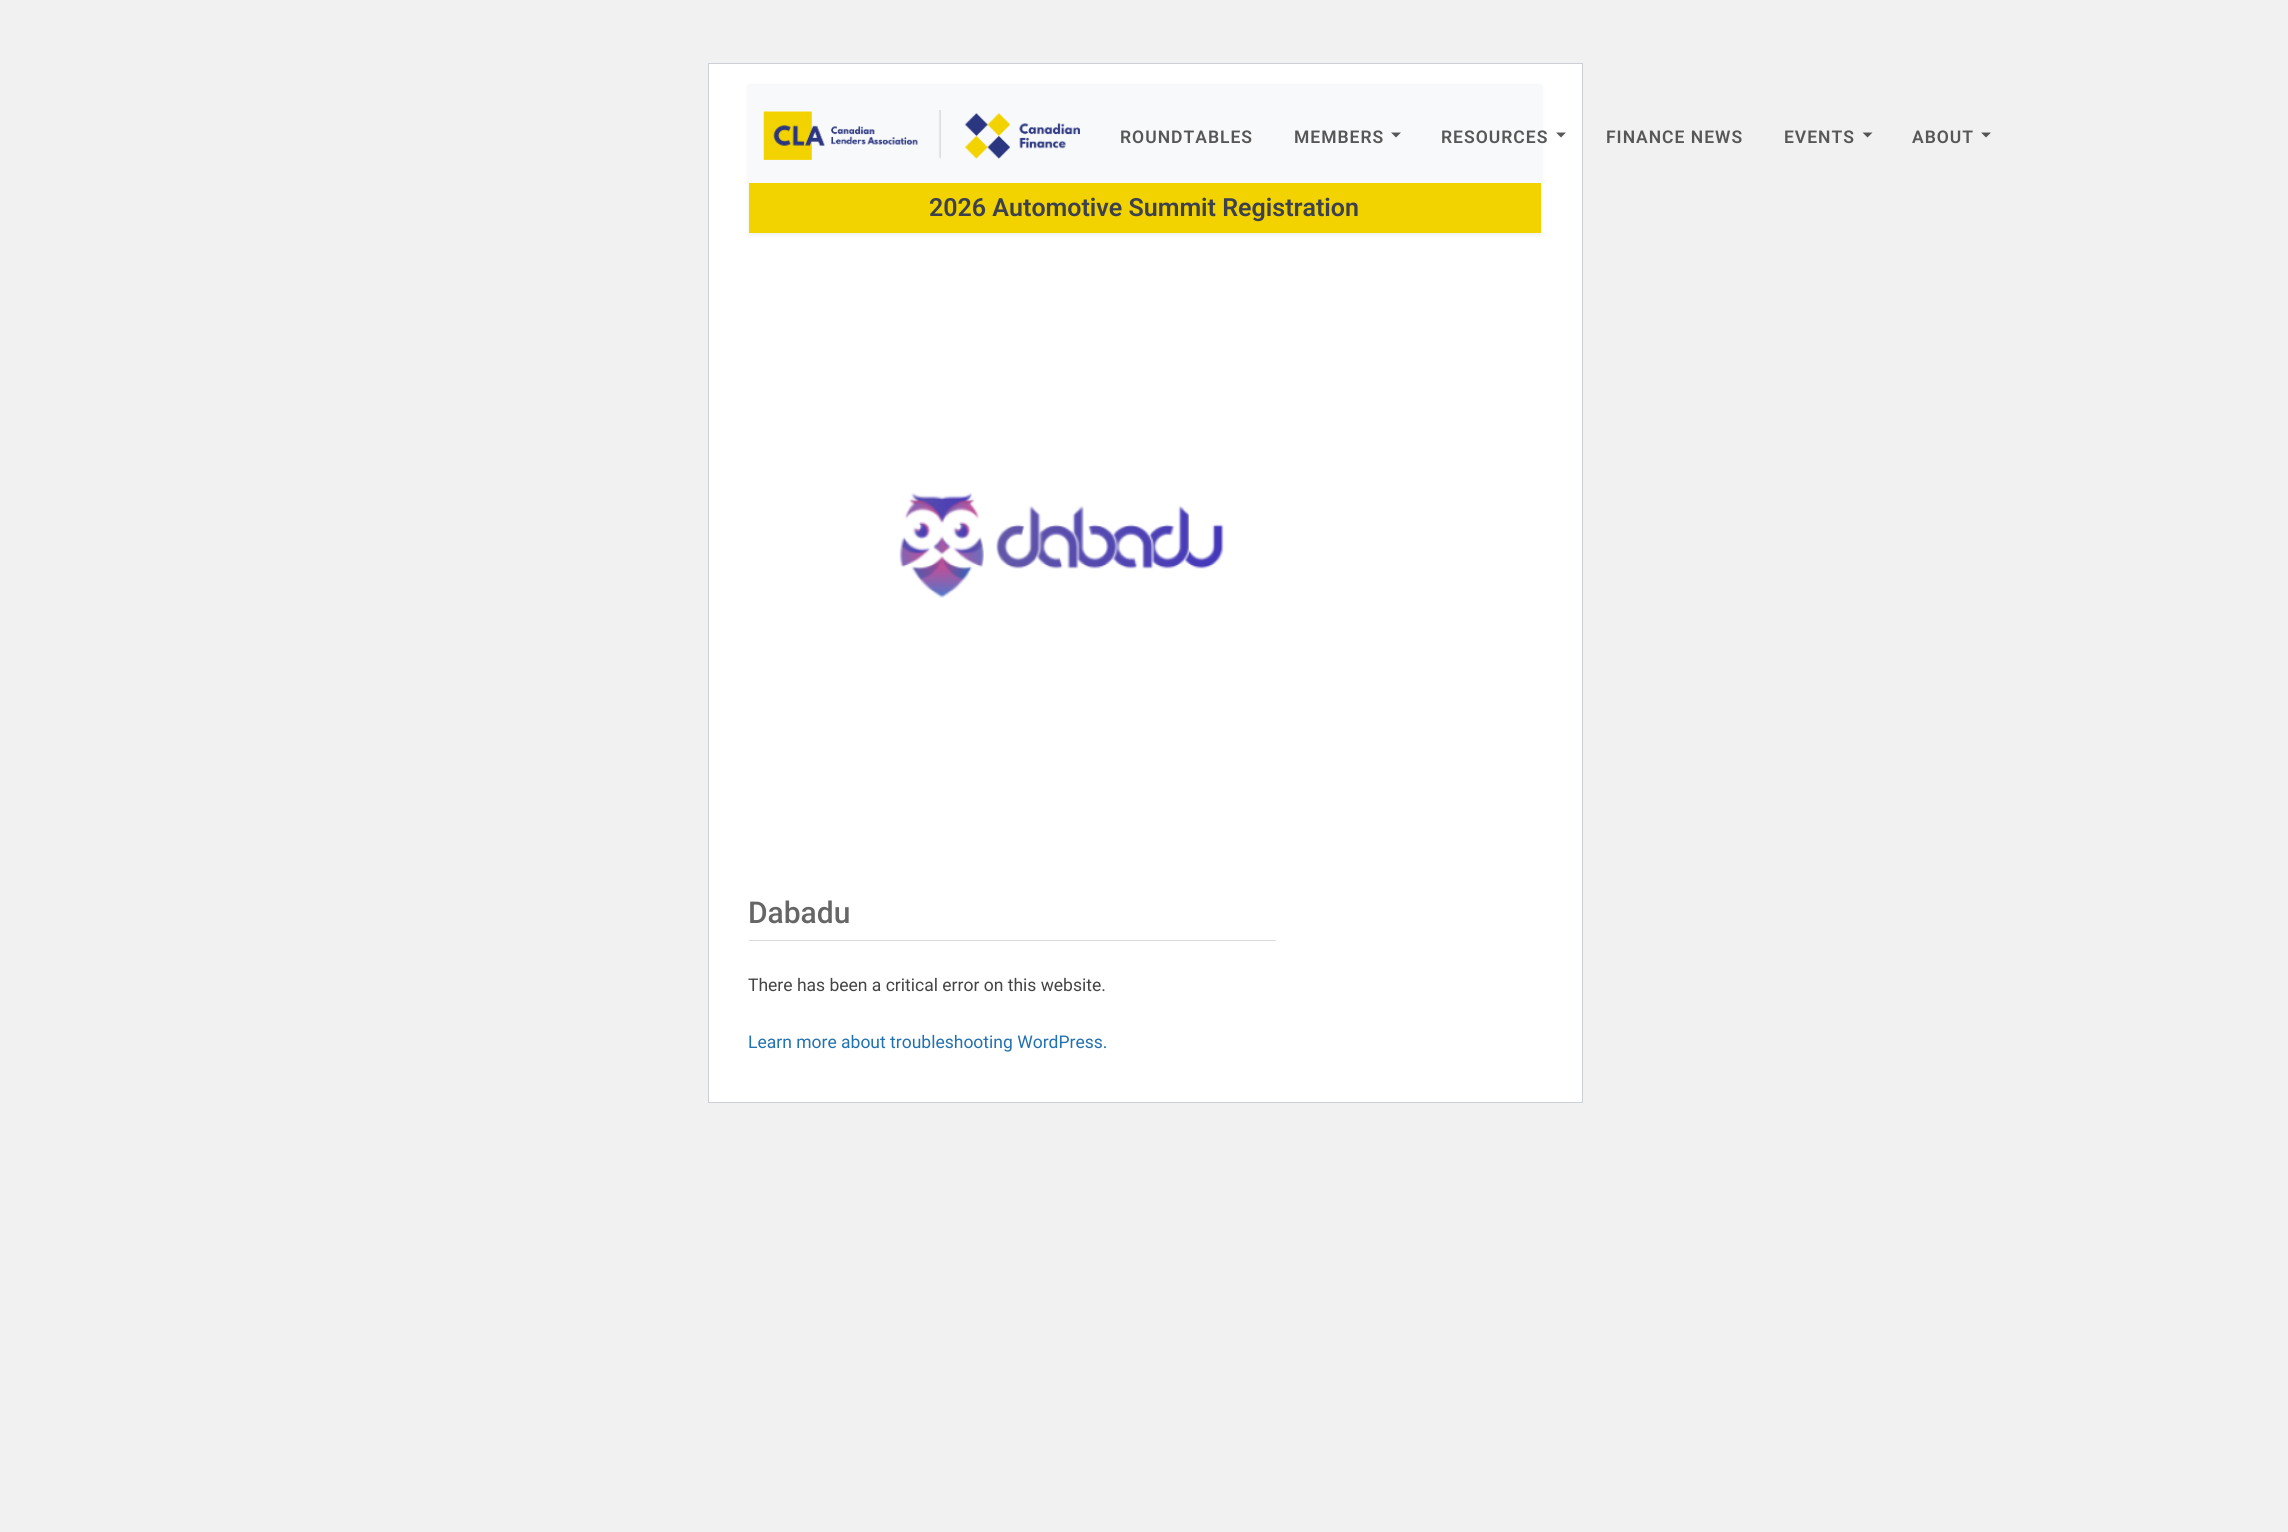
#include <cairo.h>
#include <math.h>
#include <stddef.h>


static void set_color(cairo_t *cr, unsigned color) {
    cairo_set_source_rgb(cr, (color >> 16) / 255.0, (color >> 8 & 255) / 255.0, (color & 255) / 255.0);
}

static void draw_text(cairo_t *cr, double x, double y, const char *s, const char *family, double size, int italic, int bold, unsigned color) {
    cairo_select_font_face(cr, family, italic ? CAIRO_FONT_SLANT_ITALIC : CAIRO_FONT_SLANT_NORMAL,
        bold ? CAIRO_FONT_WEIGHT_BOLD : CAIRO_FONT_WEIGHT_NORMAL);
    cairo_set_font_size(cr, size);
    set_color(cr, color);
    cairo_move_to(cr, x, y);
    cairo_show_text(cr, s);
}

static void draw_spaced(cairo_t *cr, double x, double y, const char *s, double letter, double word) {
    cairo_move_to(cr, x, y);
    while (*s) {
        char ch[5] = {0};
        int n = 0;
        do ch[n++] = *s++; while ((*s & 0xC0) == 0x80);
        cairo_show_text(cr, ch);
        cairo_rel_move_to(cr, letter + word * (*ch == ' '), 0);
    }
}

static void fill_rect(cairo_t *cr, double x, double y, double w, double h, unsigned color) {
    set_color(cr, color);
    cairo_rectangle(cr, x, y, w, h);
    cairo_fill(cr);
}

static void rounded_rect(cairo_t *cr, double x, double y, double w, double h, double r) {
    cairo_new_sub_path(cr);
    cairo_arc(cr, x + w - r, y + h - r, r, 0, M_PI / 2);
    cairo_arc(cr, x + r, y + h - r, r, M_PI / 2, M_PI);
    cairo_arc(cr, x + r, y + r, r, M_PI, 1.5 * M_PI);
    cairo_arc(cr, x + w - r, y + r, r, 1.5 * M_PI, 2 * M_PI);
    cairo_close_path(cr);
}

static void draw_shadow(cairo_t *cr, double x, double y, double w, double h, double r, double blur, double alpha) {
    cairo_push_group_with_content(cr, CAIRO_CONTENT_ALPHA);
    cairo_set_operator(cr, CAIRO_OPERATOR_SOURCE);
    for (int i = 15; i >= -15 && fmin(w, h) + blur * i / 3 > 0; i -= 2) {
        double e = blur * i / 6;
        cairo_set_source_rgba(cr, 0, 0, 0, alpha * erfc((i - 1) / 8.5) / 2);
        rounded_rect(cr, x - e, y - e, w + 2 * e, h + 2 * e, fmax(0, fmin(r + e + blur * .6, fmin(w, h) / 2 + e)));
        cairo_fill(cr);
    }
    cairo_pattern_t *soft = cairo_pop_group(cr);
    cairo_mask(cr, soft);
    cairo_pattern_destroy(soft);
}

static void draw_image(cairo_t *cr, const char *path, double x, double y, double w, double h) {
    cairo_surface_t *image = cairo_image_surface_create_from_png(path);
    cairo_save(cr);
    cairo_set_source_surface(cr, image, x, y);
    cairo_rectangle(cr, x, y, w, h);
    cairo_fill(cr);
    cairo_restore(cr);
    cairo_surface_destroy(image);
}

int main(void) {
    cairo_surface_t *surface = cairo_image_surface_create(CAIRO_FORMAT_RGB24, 2288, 1532);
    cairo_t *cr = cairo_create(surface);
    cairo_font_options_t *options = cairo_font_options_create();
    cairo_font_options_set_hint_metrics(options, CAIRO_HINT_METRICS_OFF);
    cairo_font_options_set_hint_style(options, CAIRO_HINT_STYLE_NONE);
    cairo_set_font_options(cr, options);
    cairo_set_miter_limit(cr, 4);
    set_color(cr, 0xF1F1F1);
    cairo_paint(cr);
    set_color(cr, 0xFFFFFF);
    cairo_rectangle(cr, 708.5, 63.5, 874, 1039);
    cairo_fill_preserve(cr);
    set_color(cr, 0xCCD0D4);
    cairo_set_line_width(cr, 1);
    cairo_stroke(cr);
    set_color(cr, 0x000000);
    draw_shadow(cr, 749, 86, 792, 149, 0, 2.5, 0.07);
    fill_rect(cr, 749, 84, 792, 99, 0xF8F9FA);
    draw_image(cr, "assets/img1.png", 763, 110, 317, 50);
    cairo_select_font_face(cr, "Roboto SemiBold", CAIRO_FONT_SLANT_NORMAL, CAIRO_FONT_WEIGHT_NORMAL);
    cairo_set_font_size(cr, 17.5);
    set_color(cr, 0x575758);
    draw_spaced(cr, 1120, 143, "ROUNDTABLES", 1, 0);
    draw_spaced(cr, 1294, 143, "MEMBERS", 1, 0);
    cairo_new_path(cr);
    cairo_move_to(cr, 1391, 132.5);
    cairo_line_to(cr, 1401, 132.5);
    cairo_line_to(cr, 1396, 137.5);
    cairo_close_path(cr);
    cairo_fill(cr);
    draw_spaced(cr, 1441, 143, "RESOURCES", 1, 0);
    set_color(cr, 0x595959);
    cairo_new_path(cr);
    cairo_move_to(cr, 1556, 132.5);
    cairo_line_to(cr, 1566, 132.5);
    cairo_line_to(cr, 1561, 137.5);
    cairo_close_path(cr);
    cairo_fill(cr);
    set_color(cr, 0x575758);
    draw_spaced(cr, 1606, 143, "FINANCE NEWS", 1, 0);
    draw_spaced(cr, 1784, 143, "EVENTS", 1, 0);
    set_color(cr, 0x545454);
    cairo_new_path(cr);
    cairo_move_to(cr, 1862.5, 132.5);
    cairo_line_to(cr, 1872.5, 132.5);
    cairo_line_to(cr, 1867.5, 137.5);
    cairo_close_path(cr);
    cairo_fill(cr);
    set_color(cr, 0x575758);
    draw_spaced(cr, 1912, 143, "ABOUT", 1, 0);
    set_color(cr, 0x545454);
    cairo_new_path(cr);
    cairo_move_to(cr, 1981, 132.5);
    cairo_line_to(cr, 1991, 132.5);
    cairo_line_to(cr, 1986, 137.5);
    cairo_close_path(cr);
    cairo_fill(cr);
    fill_rect(cr, 749, 183, 792, 50, 0xF2D300);
    draw_text(cr, 929, 216, "2026 Automotive Summit Registration", "Roboto SemiBold", 25, 0, 0, 0x3C414D);
    draw_image(cr, "assets/img2.png", 899, 492, 325, 107);
    fill_rect(cr, 749, 940, 527, 1, 0xDADADA);
    draw_text(cr, 748, 923, "Dabadu", "Roboto Medium", 30, 0, 0, 0x666666);
    draw_text(cr, 748, 991, "There has been a critical error on this website.", "Roboto", 17.5, 0, 0, 0x444444);
    draw_text(cr, 748, 1048, "Learn more about troubleshooting WordPress.", "Roboto", 17.5, 0, 0, 0x2271B1);
    cairo_surface_write_to_png(surface, "output.png");
    cairo_font_options_destroy(options);
    cairo_destroy(cr);
    cairo_surface_destroy(surface);
    return 0;
}
